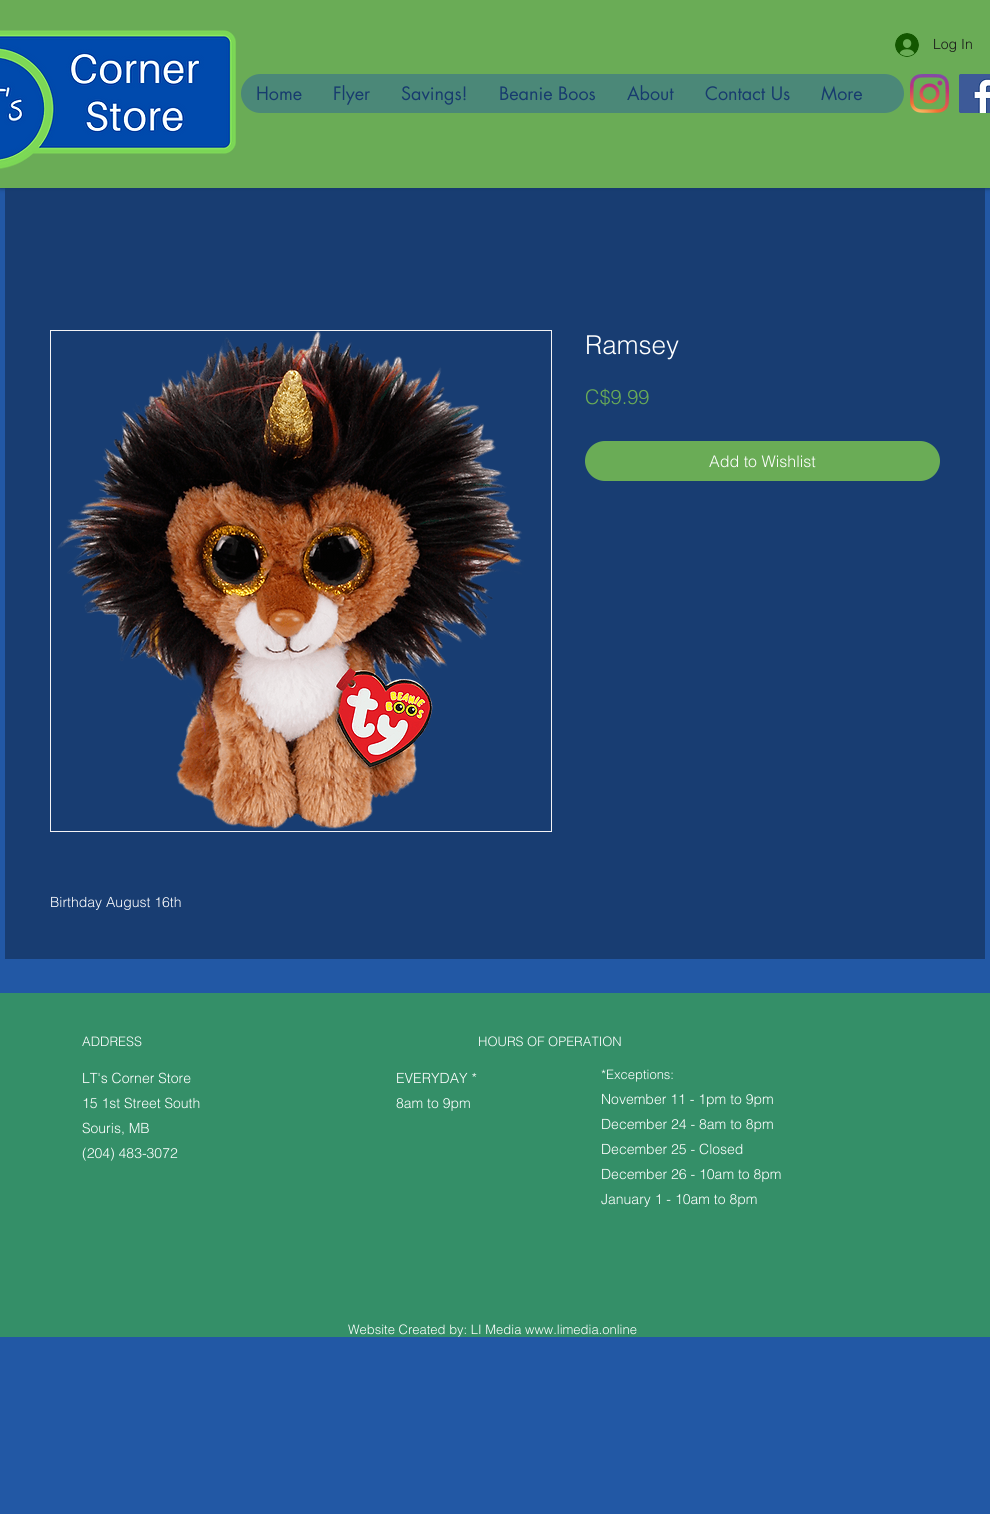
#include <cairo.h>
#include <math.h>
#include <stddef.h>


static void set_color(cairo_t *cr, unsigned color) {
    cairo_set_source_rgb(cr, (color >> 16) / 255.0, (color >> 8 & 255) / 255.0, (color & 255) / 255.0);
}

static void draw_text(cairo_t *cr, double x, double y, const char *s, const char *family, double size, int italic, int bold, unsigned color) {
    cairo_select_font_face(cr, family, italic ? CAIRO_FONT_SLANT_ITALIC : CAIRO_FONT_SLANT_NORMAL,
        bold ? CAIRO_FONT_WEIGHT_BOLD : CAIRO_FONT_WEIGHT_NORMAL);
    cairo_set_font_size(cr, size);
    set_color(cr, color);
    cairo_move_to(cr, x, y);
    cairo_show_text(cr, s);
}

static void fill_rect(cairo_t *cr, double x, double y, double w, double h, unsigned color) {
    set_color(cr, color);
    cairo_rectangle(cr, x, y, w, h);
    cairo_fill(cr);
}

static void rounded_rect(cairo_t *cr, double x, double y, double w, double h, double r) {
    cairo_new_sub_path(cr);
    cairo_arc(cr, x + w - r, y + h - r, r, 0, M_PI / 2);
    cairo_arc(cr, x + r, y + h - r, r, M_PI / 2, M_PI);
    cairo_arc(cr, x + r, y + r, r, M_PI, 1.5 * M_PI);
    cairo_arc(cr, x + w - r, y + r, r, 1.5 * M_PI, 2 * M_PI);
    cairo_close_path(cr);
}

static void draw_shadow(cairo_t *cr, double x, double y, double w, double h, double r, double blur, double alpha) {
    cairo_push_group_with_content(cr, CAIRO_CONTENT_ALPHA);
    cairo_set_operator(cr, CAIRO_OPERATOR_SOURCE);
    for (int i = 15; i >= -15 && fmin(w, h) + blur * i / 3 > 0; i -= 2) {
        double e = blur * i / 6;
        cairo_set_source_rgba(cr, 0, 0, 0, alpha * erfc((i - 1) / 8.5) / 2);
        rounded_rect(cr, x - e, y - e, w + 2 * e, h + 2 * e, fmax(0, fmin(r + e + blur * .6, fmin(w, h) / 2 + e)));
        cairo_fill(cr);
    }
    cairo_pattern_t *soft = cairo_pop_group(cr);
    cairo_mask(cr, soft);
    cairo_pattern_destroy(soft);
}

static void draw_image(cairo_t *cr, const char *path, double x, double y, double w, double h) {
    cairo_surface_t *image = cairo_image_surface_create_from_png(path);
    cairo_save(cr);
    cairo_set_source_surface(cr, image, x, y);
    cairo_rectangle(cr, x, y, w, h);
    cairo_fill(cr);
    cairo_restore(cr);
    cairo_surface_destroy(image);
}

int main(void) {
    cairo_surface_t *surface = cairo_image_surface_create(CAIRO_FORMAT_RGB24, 990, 1514);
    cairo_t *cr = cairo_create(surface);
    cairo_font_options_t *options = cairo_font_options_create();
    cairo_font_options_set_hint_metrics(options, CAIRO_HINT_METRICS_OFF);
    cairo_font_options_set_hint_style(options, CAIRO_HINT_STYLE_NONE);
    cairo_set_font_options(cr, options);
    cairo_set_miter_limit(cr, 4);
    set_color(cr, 0x2258A5);
    cairo_paint(cr);
    set_color(cr, 0x000000);
    draw_shadow(cr, 0, 0, 990, 188, 0, 2.5, 0.5);
    fill_rect(cr, 0, 0, 990, 188, 0x6AAC56);
    draw_image(cr, "assets/img1.png", 0, 30, 236, 139);
    draw_image(cr, "assets/img2.png", 895, 33, 24, 24);
    draw_text(cr, 933, 49, "Log In", "helvetica Light", 14, 0, 0, 0x191919);
    set_color(cr, 0x4B8878);
    rounded_rect(cr, 241, 74, 663, 39, 19.5);
    cairo_fill(cr);
    draw_text(cr, 256, 100, "Home", "futura", 18, 0, 0, 0x173B6E);
    draw_text(cr, 333, 100, "Flyer", "futura", 18, 0, 0, 0x173B6E);
    draw_text(cr, 401, 100, "Savings!", "futura", 18, 0, 0, 0x173B6E);
    draw_text(cr, 499, 100, "Beanie Boos", "futura", 18, 0, 0, 0x173B6E);
    draw_text(cr, 627, 100, "About", "futura", 18, 0, 0, 0x173B6E);
    draw_text(cr, 705, 100, "Contact Us", "futura", 18, 0, 0, 0x173B6E);
    draw_text(cr, 821, 100, "More", "futura", 18, 0, 0, 0x173B6E);
    draw_image(cr, "assets/img3.png", 910, 74, 39, 39);
    draw_image(cr, "assets/img4.png", 959, 74, 31, 39);
    cairo_set_source_rgba(cr, 0.09, 0.231, 0.431, 0.92);
    cairo_rectangle(cr, 5, 188, 980, 771);
    cairo_fill(cr);
    draw_text(cr, 585, 354, "Ramsey", "helvetica Light", 26, 0, 0, 0xFFFFFF);
    draw_text(cr, 585, 404, "C$9.99", "helvetica Light", 20, 0, 0, 0x6AAC56);
    rounded_rect(cr, 585, 441, 355, 40, 20);
    cairo_fill(cr);
    draw_text(cr, 709, 467, "Add to Wishlist", "helvetica Light", 16, 0, 0, 0xFFFFFF);
    cairo_rectangle(cr, 50.5, 330.5, 501, 501);
    set_color(cr, 0xF3F3F5);
    cairo_set_line_width(cr, 1);
    cairo_stroke(cr);
    draw_image(cr, "assets/img5.png", 57, 331, 467, 498);
    draw_text(cr, 50, 907, "Birthday August 16th", "helvetica Light", 14, 0, 0, 0xFFFFFF);
    fill_rect(cr, 0, 993, 990, 344, 0x348F68);
    draw_text(cr, 82, 1046, "ADDRESS", "helvetica Light", 13, 0, 0, 0xFFFFFF);
    draw_text(cr, 478, 1046, "HOURS OF OPERATION", "helvetica Light", 13, 0, 0, 0xFFFFFF);
    draw_text(cr, 396, 1083, "EVERYDAY *", "helvetica Light", 14, 0, 0, 0xFFFFFF);
    draw_text(cr, 396, 1108, "8am to 9pm", "helvetica Light", 14, 0, 0, 0xFFFFFF);
    draw_text(cr, 601, 1079, "*Exceptions:", "helvetica Light", 13, 0, 0, 0xFFFFFF);
    draw_text(cr, 601, 1104, "November 11 - 1pm to 9pm", "helvetica Light", 14, 0, 0, 0xFFFFFF);
    draw_text(cr, 601, 1129, "December 24 - 8am to 8pm", "helvetica Light", 14, 0, 0, 0xFFFFFF);
    draw_text(cr, 601, 1154, "December 25 - Closed", "helvetica Light", 14, 0, 0, 0xFFFFFF);
    draw_text(cr, 601, 1179, "December 26 - 10am to 8pm", "helvetica Light", 14, 0, 0, 0xFFFFFF);
    draw_text(cr, 601, 1204, "January 1 - 10am to 8pm", "helvetica Light", 14, 0, 0, 0xFFFFFF);
    draw_text(cr, 82, 1083, "LT's Corner Store", "helvetica Light", 14, 0, 0, 0xFFFFFF);
    draw_text(cr, 82, 1108, "15 1st Street South", "helvetica Light", 14, 0, 0, 0xFFFFFF);
    draw_text(cr, 82, 1133, "Souris, MB", "helvetica Light", 14, 0, 0, 0xFFFFFF);
    draw_text(cr, 82, 1158, "(204) 483-3072", "helvetica Light", 14, 0, 0, 0xFFFFFF);
    draw_text(cr, 348, 1334, "Website Created by: LI Media www.limedia.online", "helvetica Light", 13, 0, 0, 0xFFFFFF);
    cairo_surface_write_to_png(surface, "output.png");
    cairo_font_options_destroy(options);
    cairo_destroy(cr);
    cairo_surface_destroy(surface);
    return 0;
}
